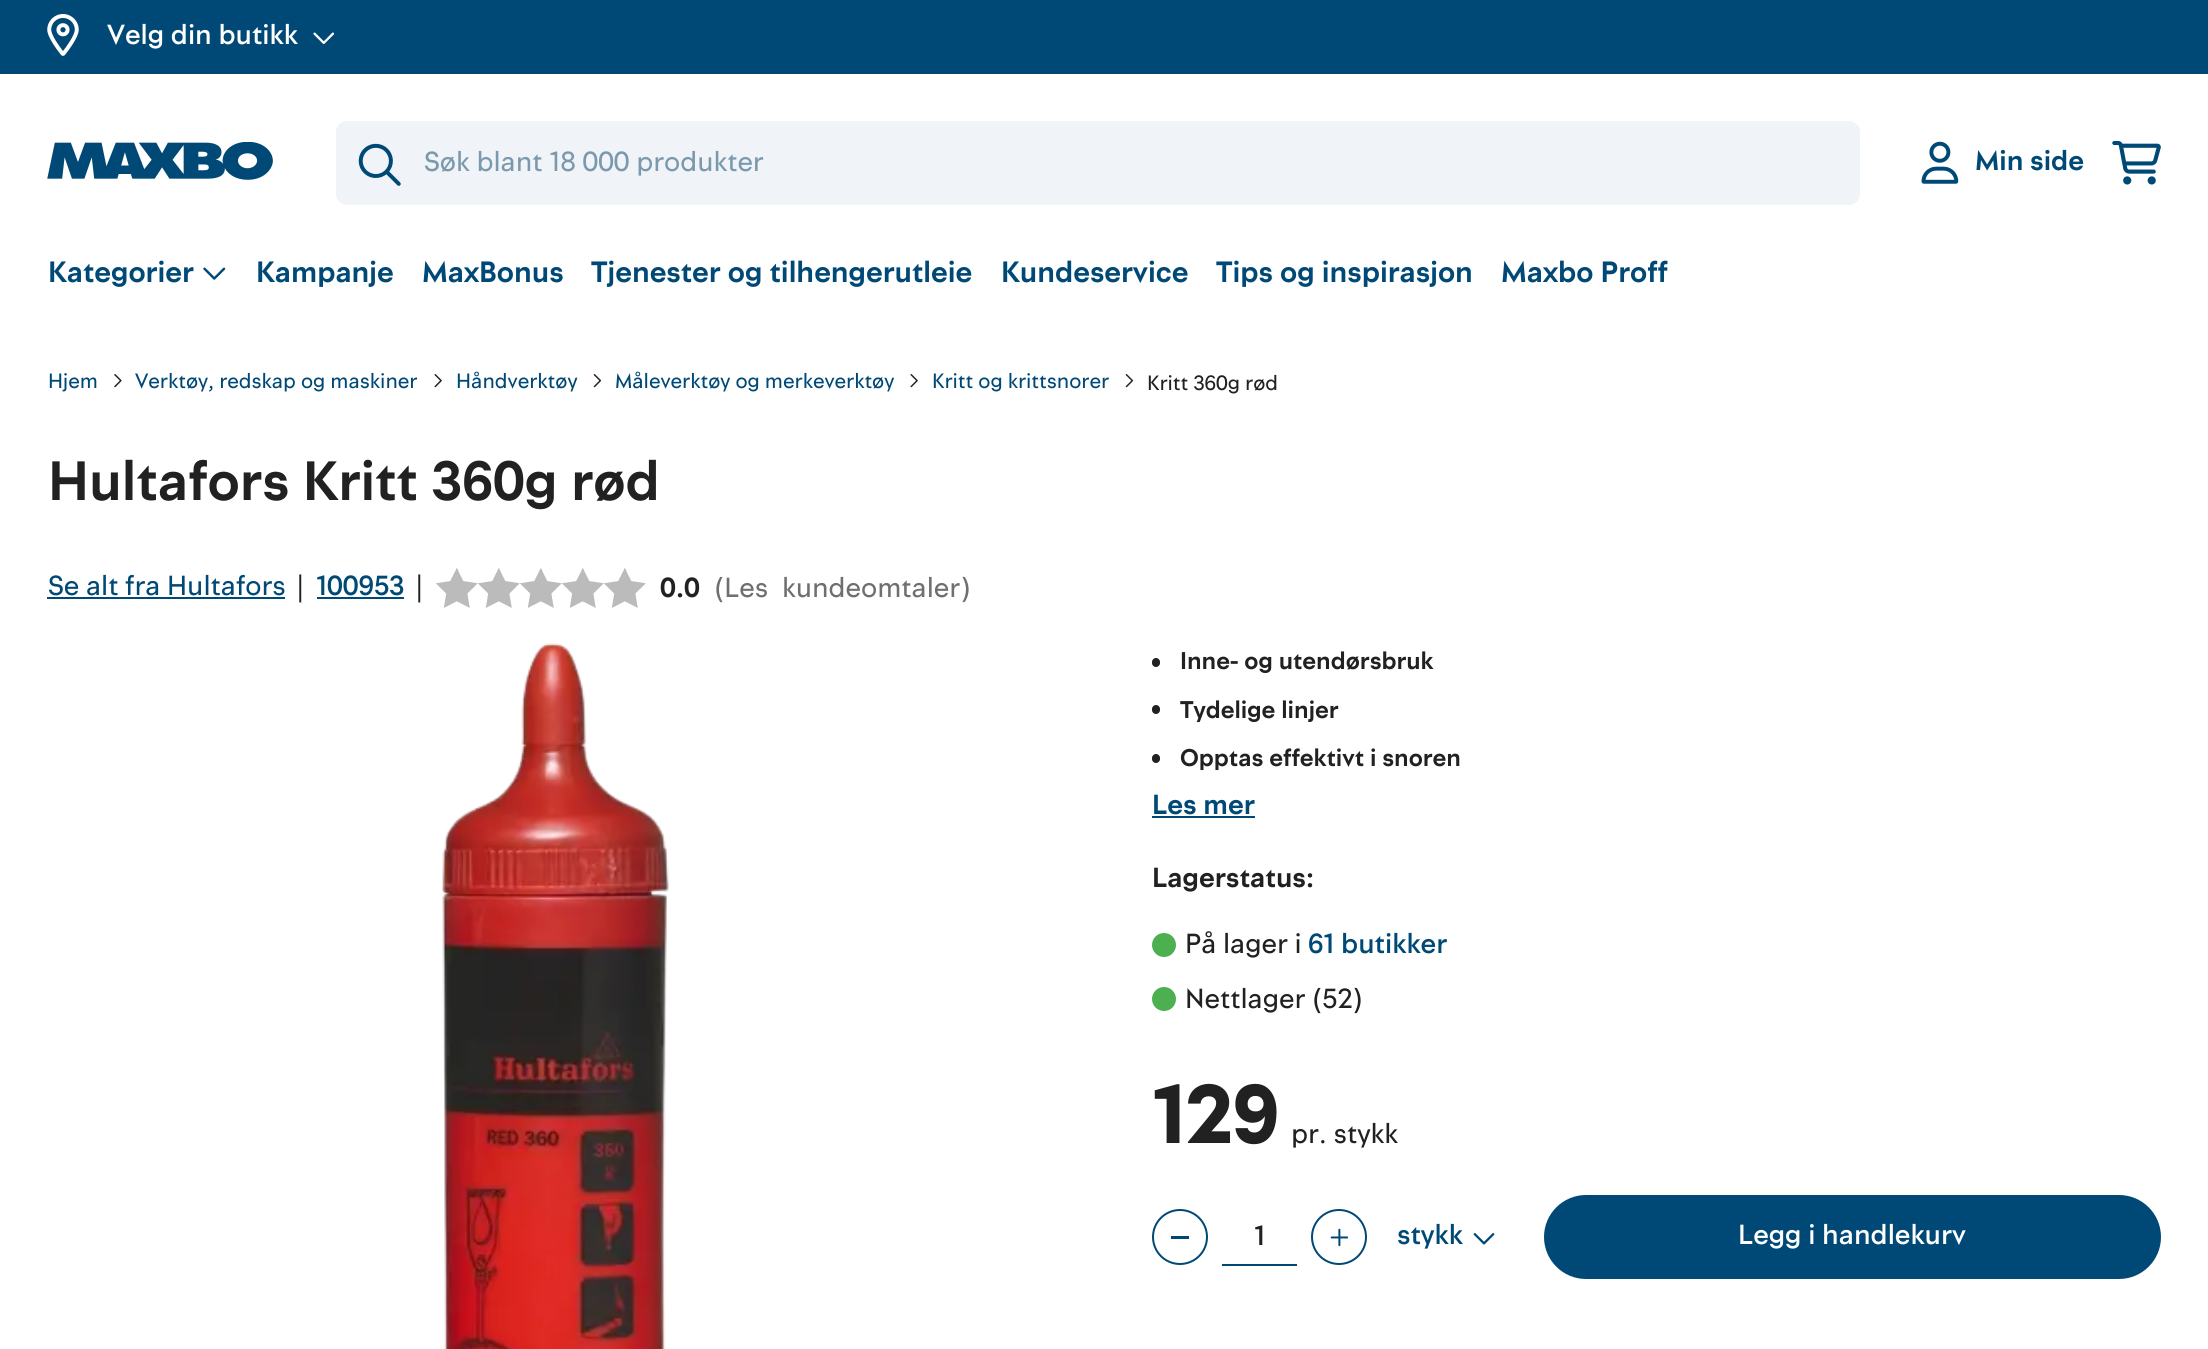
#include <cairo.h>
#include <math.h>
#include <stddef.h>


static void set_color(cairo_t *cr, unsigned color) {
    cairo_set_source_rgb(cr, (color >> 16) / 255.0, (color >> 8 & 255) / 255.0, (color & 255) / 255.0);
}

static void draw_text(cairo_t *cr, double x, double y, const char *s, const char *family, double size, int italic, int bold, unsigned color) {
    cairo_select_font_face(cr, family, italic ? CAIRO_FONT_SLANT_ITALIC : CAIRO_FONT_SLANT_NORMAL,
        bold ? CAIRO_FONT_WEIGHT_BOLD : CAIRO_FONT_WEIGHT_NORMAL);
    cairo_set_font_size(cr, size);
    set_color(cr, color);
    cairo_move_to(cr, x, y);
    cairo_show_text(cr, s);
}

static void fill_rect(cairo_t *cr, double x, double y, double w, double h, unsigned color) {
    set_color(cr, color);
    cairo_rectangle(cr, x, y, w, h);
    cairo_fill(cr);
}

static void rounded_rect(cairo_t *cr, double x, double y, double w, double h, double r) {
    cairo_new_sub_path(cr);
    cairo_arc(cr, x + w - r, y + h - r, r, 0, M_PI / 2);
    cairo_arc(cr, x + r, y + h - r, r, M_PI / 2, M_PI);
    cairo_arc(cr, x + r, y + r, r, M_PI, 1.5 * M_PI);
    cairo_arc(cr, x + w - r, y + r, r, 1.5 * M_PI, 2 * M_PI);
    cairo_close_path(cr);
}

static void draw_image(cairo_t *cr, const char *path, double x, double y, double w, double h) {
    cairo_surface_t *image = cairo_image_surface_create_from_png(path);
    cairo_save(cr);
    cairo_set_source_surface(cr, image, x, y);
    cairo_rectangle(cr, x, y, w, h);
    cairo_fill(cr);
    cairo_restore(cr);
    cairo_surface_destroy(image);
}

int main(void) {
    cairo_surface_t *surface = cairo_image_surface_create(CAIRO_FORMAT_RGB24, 2208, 1349);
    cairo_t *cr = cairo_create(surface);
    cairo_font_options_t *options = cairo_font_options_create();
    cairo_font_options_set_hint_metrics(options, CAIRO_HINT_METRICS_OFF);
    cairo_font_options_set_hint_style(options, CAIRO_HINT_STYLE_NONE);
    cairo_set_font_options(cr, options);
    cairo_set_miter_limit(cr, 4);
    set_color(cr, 0xFFFFFF);
    cairo_paint(cr);
    fill_rect(cr, 0, 0, 2208, 74, 0x004976);
    draw_image(cr, "assets/img1.png", 47, 14, 32, 42);
    draw_text(cr, 107, 44, "Velg din butikk", "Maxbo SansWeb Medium", 28, 0, 0, 0xFFFFFF);
    draw_image(cr, "assets/img2.png", 313, 32, 22, 12);
    draw_image(cr, "assets/img3.png", 47, 142, 226, 38);
    set_color(cr, 0xF0F3F7);
    rounded_rect(cr, 336, 121, 1524, 84, 11);
    cairo_fill(cr);
    draw_image(cr, "assets/img4.png", 358, 143, 43, 43);
    draw_text(cr, 424, 171, "Søk blant 18 000 produkter", "Maxbo SansWeb", 28, 0, 0, 0x7A99AC);
    draw_image(cr, "assets/img5.png", 1921, 141, 38, 43);
    draw_text(cr, 1975, 170, "Min side", "Maxbo SansWeb", 28, 0, 1, 0x004976);
    draw_image(cr, "assets/img6.png", 2112, 141, 49, 44);
    draw_text(cr, 48, 282, "Kategorier", "Maxbo SansWeb", 29.75, 0, 1, 0x004976);
    draw_image(cr, "assets/img7.png", 203, 267, 23, 13);
    draw_text(cr, 256, 282, "Kampanje", "Maxbo SansWeb", 29.75, 0, 1, 0x004976);
    draw_text(cr, 422, 282, "MaxBonus", "Maxbo SansWeb", 29.75, 0, 1, 0x004976);
    draw_text(cr, 591, 282, "Tjenester og tilhengerutleie", "Maxbo SansWeb", 29.75, 0, 1, 0x004976);
    draw_text(cr, 1001, 282, "Kundeservice", "Maxbo SansWeb", 29.75, 0, 1, 0x004976);
    draw_text(cr, 1216, 282, "Tips og inspirasjon", "Maxbo SansWeb", 29.75, 0, 1, 0x004976);
    draw_text(cr, 1501, 282, "Maxbo Proff", "Maxbo SansWeb", 29.75, 0, 1, 0x004976);
    draw_text(cr, 48, 388, "Hjem", "Maxbo SansWeb", 21, 0, 0, 0x004976);
    draw_image(cr, "assets/img8.png", 114, 374, 8, 14);
    draw_text(cr, 135, 388, "Verktøy, redskap og maskiner", "Maxbo SansWeb", 21, 0, 0, 0x004976);
    draw_image(cr, "assets/img9.png", 434, 374, 8, 14);
    draw_text(cr, 456, 388, "Håndverktøy", "Maxbo SansWeb", 21, 0, 0, 0x004976);
    draw_image(cr, "assets/img10.png", 593, 374, 9, 14);
    draw_text(cr, 615, 388, "Måleverktøy og merkeverktøy", "Maxbo SansWeb", 21, 0, 0, 0x004976);
    draw_image(cr, "assets/img9.png", 910, 374, 8, 14);
    draw_text(cr, 932, 388, "Kritt og krittsnorer", "Maxbo SansWeb", 21, 0, 0, 0x004976);
    draw_image(cr, "assets/img10.png", 1125, 374, 9, 14);
    draw_text(cr, 1147, 390, "Kritt 360g rød", "Maxbo SansWeb", 21, 0, 0, 0x212121);
    draw_text(cr, 48, 500, "Hultafors Kritt 360g rød", "Maxbo SansWeb", 56, 0, 1, 0x212121);
    draw_text(cr, 48, 595, "Se alt fra Hultafors", "Maxbo SansWeb", 28, 0, 0, 0x004976);
    fill_rect(cr, 47, 597, 238, 2, 0x004976);
    draw_text(cr, 296, 596, "|", "Maxbo SansWeb", 28, 0, 0, 0x212121);
    draw_text(cr, 316, 595, "100953", "Maxbo SansWeb Medium", 28, 0, 0, 0x004976);
    fill_rect(cr, 317, 597, 87, 2, 0x004976);
    draw_text(cr, 415, 596, "|", "Maxbo SansWeb", 28, 0, 0, 0x212121);
    draw_image(cr, "assets/img11.png", 436, 568, 42, 40);
    draw_image(cr, "assets/img11.png", 478, 568, 42, 40);
    draw_image(cr, "assets/img11.png", 520, 568, 42, 40);
    draw_image(cr, "assets/img11.png", 562, 568, 42, 40);
    draw_image(cr, "assets/img11.png", 604, 568, 42, 40);
    draw_text(cr, 660, 597, "0.0", "Maxbo SansWeb", 28, 0, 1, 0x212121);
    draw_text(cr, 714, 597, "(Les", "Maxbo SansWeb", 28, 0, 0, 0x6F6F6F);
    draw_text(cr, 782, 597, "kundeomtaler)", "Maxbo SansWeb", 28, 0, 0, 0x6F6F6F);
    draw_image(cr, "assets/img12.png", 442, 643, 227, 706);
    set_color(cr, 0x212121);
    rounded_rect(cr, 1152, 658, 8, 9, 4);
    cairo_fill(cr);
    draw_text(cr, 1180, 669, "Inne- og utendørsbruk", "Maxbo SansWeb", 24.5, 0, 1, 0x212121);
    rounded_rect(cr, 1152, 705, 8, 9, 4);
    cairo_fill(cr);
    draw_text(cr, 1180, 718, "Tydelige linjer", "Maxbo SansWeb", 24.5, 0, 1, 0x212121);
    rounded_rect(cr, 1152, 754, 8, 9, 4);
    cairo_fill(cr);
    draw_text(cr, 1180, 766, "Opptas effektivt i snoren", "Maxbo SansWeb", 24.5, 0, 1, 0x212121);
    draw_text(cr, 1152, 814, "Les mer", "Maxbo SansWeb", 28, 0, 1, 0x004976);
    fill_rect(cr, 1152, 816, 103, 2, 0x004976);
    draw_text(cr, 1152, 887, "Lagerstatus:", "Maxbo SansWeb", 28, 0, 1, 0x212121);
    set_color(cr, 0x4CAF50);
    cairo_new_path(cr);
    cairo_arc(cr, 1164, 945, 12, 0, 2 * M_PI);
    cairo_fill(cr);
    draw_text(cr, 1185, 953, "På lager i", "Maxbo SansWeb", 28, 0, 0, 0x212121);
    draw_text(cr, 1308, 953, "61 butikker", "Maxbo SansWeb Medium", 28, 0, 0, 0x004976);
    set_color(cr, 0x4CAF50);
    cairo_new_path(cr);
    cairo_arc(cr, 1164, 999, 12, 0, 2 * M_PI);
    cairo_fill(cr);
    draw_text(cr, 1185, 1008, "Nettlager (52)", "Maxbo SansWeb", 28, 0, 0, 0x212121);
    draw_text(cr, 1152, 1143, "129", "Maxbo SansWeb Black", 84, 0, 0, 0x212121);
    draw_text(cr, 1291, 1143, "pr. stykk", "Maxbo SansWeb", 28, 0, 0, 0x212121);
    cairo_new_path(cr);
    cairo_arc(cr, 1180, 1237, 27, 0, 2 * M_PI);
    set_color(cr, 0x004976);
    cairo_stroke(cr);
    fill_rect(cr, 1171, 1236, 18, 3, 0x004976);
    fill_rect(cr, 1222, 1264, 75, 2, 0x004976);
    draw_text(cr, 1254, 1245, "1", "Maxbo SansWeb Medium", 28, 0, 0, 0x212121);
    cairo_new_path(cr);
    cairo_arc(cr, 1339, 1237, 27, 0, 2 * M_PI);
    set_color(cr, 0x004976);
    cairo_stroke(cr);
    draw_image(cr, "assets/img13.png", 1330, 1228, 19, 19);
    draw_text(cr, 1397, 1244, "stykk", "Maxbo SansWeb Medium", 28, 0, 0, 0x004976);
    draw_image(cr, "assets/img14.png", 1473, 1233, 22, 12);
    rounded_rect(cr, 1544, 1195, 617, 84, 42);
    cairo_fill(cr);
    draw_text(cr, 1738, 1244, "Legg i handlekurv", "Maxbo SansWeb Medium", 28, 0, 0, 0xFFFFFF);
    cairo_surface_write_to_png(surface, "output.png");
    cairo_font_options_destroy(options);
    cairo_destroy(cr);
    cairo_surface_destroy(surface);
    return 0;
}
